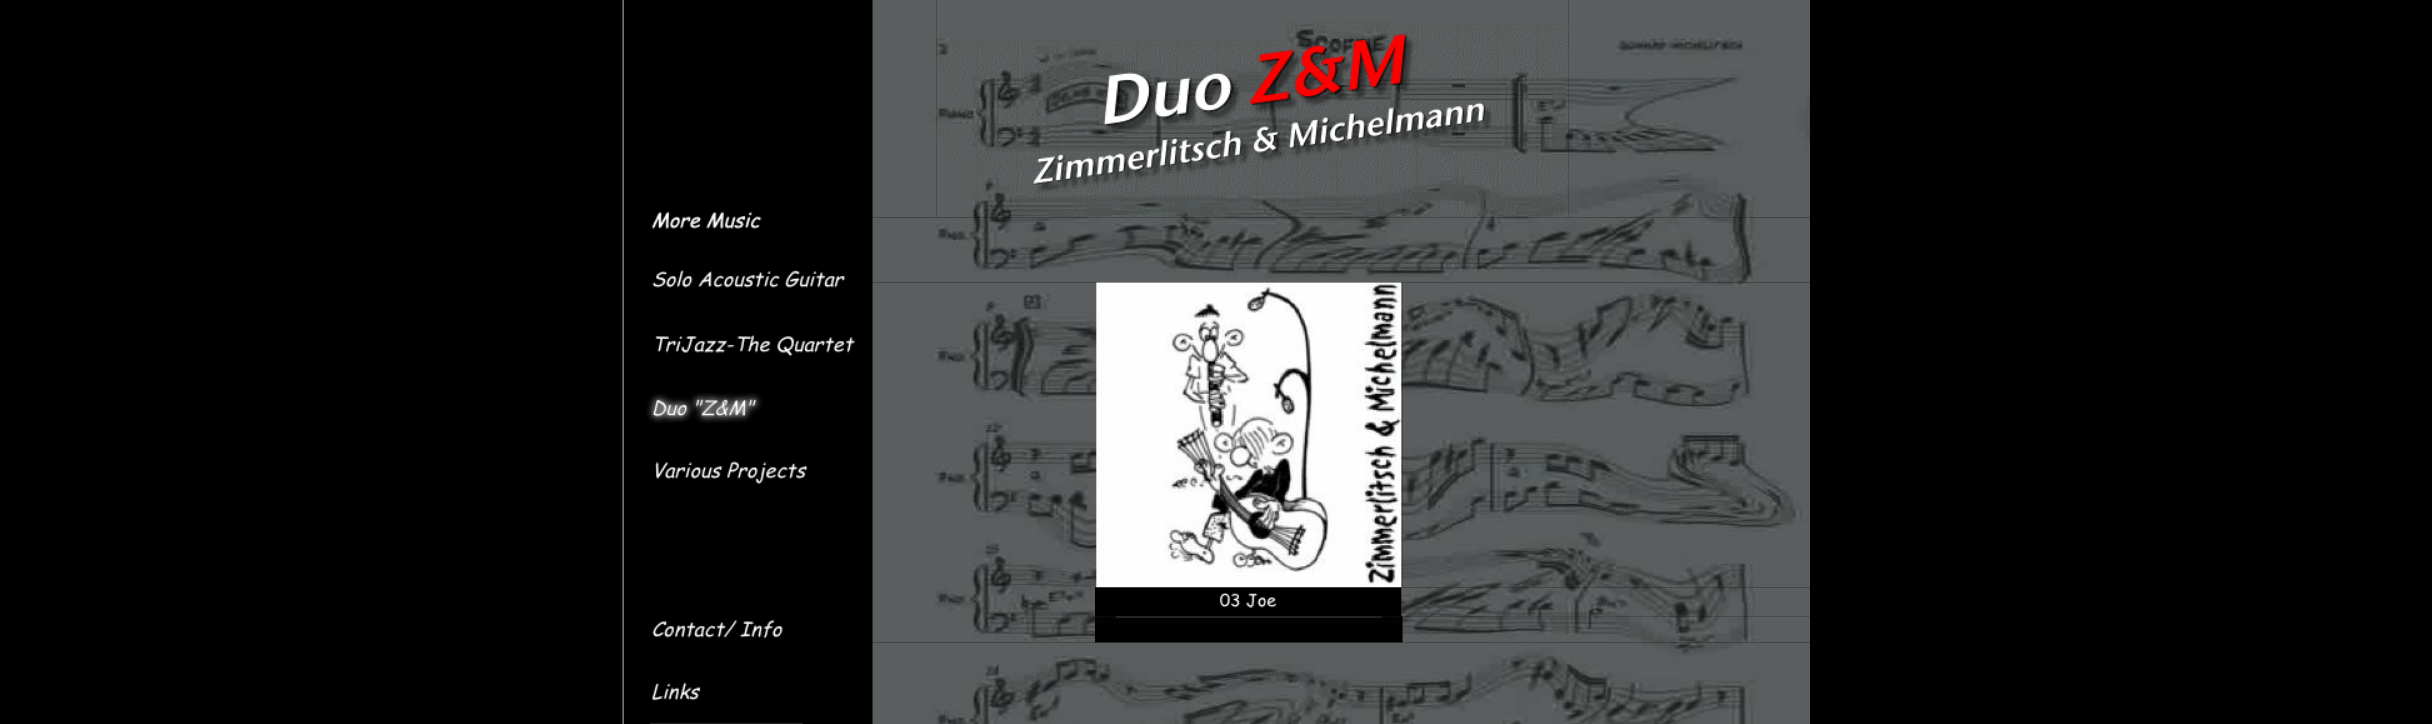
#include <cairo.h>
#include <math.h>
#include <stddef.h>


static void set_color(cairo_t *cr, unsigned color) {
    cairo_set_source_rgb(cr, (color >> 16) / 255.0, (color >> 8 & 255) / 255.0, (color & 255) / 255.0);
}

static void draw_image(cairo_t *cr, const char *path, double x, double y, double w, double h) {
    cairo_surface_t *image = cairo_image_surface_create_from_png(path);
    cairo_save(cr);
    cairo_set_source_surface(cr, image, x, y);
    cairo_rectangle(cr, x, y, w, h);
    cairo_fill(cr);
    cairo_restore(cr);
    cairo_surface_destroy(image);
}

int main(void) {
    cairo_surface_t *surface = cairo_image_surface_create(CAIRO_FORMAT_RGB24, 2432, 724);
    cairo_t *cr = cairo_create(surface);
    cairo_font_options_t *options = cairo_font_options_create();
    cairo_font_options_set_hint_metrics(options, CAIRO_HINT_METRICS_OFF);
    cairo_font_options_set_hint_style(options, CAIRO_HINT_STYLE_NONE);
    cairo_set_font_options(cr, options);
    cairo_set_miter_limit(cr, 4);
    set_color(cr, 0x000000);
    cairo_paint(cr);
    draw_image(cr, "assets/img1.png", 622, 0, 2, 724);
    draw_image(cr, "assets/img2.png", 872, 0, 65, 218);
    draw_image(cr, "assets/img3.png", 936, 0, 633, 218);
    draw_image(cr, "assets/img4.png", 1568, 0, 242, 218);
    draw_image(cr, "assets/img5.png", 651, 211, 111, 18);
    draw_image(cr, "assets/img6.png", 872, 217, 938, 66);
    draw_image(cr, "assets/img7.png", 652, 270, 194, 18);
    draw_image(cr, "assets/img8.png", 655, 335, 201, 22);
    draw_image(cr, "assets/img9.png", 872, 282, 223, 361);
    draw_image(cr, "assets/img10.png", 1095, 282, 308, 306);
    draw_image(cr, "assets/img11.png", 1402, 282, 408, 306);
    draw_image(cr, "assets/img12.png", 646, 393, 117, 30);
    draw_image(cr, "assets/img13.png", 655, 461, 153, 23);
    draw_image(cr, "assets/img14.png", 1095, 587, 307, 21);
    draw_image(cr, "assets/img15.png", 1401, 587, 409, 30);
    draw_image(cr, "assets/img16.png", 652, 620, 131, 19);
    draw_image(cr, "assets/img18.png", 1402, 616, 408, 27);
    draw_image(cr, "assets/img20.png", 872, 642, 938, 82);
    draw_image(cr, "assets/img17.png", 1095, 616, 308, 27);
    draw_image(cr, "assets/img19.png", 652, 682, 49, 19);
    draw_image(cr, "assets/img21.png", 650, 723, 153, 1);
    cairo_surface_write_to_png(surface, "output.png");
    cairo_font_options_destroy(options);
    cairo_destroy(cr);
    cairo_surface_destroy(surface);
    return 0;
}
